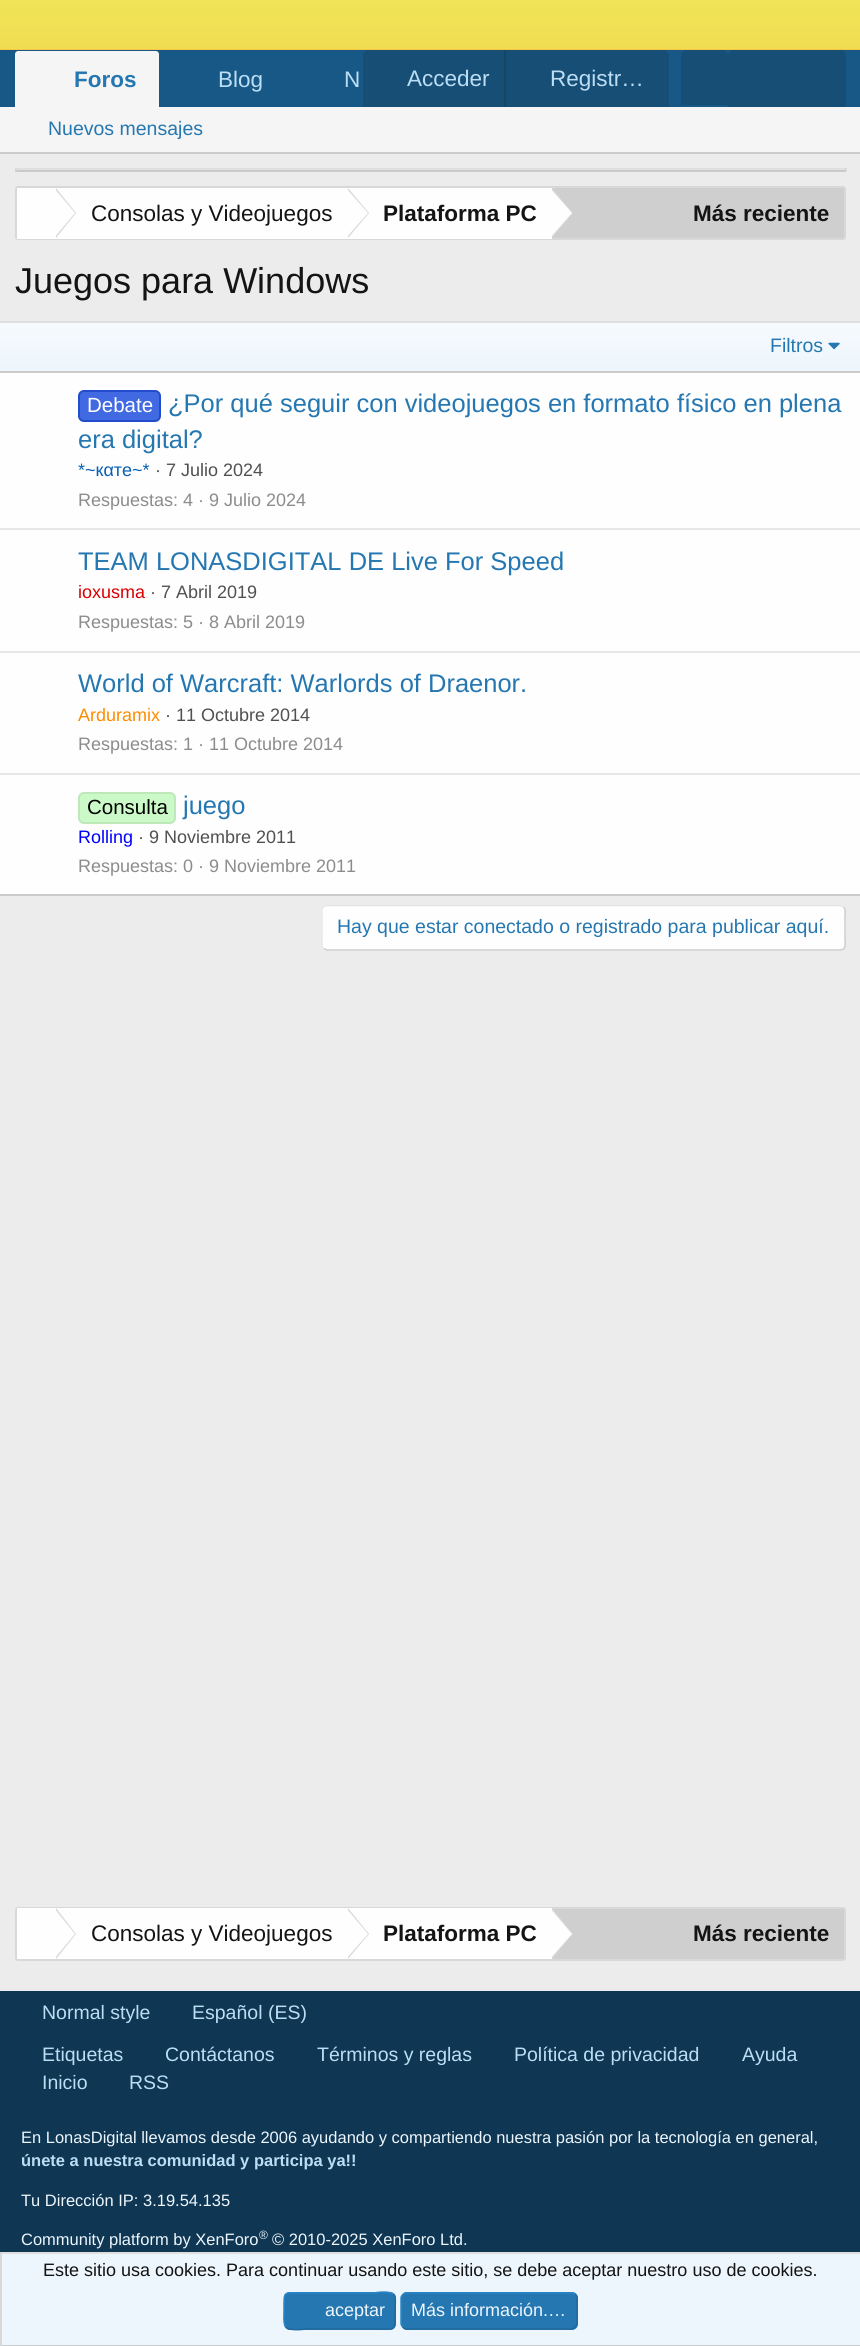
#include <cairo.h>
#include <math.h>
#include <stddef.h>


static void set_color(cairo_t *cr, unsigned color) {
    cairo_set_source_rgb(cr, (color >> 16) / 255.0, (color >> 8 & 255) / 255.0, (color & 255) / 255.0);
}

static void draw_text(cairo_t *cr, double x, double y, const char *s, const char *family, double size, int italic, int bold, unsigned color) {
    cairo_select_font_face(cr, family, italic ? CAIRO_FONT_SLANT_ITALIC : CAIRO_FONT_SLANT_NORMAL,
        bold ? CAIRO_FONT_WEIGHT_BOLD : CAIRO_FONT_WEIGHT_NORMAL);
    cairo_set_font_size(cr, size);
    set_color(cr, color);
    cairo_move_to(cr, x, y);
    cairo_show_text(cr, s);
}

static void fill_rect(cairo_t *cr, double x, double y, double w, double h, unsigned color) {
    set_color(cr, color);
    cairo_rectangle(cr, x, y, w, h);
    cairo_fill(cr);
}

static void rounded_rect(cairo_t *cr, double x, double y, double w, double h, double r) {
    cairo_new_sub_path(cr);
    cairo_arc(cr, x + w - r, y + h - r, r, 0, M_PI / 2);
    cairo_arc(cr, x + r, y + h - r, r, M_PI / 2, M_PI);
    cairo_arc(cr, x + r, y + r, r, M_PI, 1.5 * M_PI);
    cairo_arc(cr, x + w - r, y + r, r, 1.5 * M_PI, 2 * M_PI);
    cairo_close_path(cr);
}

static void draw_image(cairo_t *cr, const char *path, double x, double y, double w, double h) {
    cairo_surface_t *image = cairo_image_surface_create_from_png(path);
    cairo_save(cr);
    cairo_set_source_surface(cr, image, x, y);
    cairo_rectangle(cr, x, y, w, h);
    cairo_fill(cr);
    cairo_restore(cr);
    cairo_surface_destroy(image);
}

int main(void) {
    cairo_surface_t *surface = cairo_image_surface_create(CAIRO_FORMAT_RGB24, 860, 2346);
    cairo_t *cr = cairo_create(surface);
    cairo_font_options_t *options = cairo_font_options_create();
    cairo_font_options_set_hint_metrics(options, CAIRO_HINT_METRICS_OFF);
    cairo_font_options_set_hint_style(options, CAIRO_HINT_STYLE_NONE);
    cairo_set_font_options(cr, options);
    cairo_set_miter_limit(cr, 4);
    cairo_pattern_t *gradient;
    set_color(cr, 0xECECEC);
    cairo_paint(cr);
    fill_rect(cr, 0, 49, 860, 1, 0xFEAE31);
    draw_image(cr, "assets/img1.png", 0, 0, 860, 50);
    fill_rect(cr, 0, 50, 860, 57, 0x185886);
    set_color(cr, 0xF5F5F5);
    cairo_new_path(cr);
    cairo_move_to(cr, 18, 51);
    cairo_line_to(cr, 156, 51);
    cairo_curve_to(cr, 157.5, 51, 159, 52.5, 159, 54);
    cairo_line_to(cr, 159, 107);
    cairo_line_to(cr, 15, 107);
    cairo_line_to(cr, 15, 54);
    cairo_curve_to(cr, 15, 52.5, 16.5, 51, 18, 51);
    cairo_close_path(cr);
    cairo_fill(cr);
    draw_text(cr, 74, 87, "Foros", "Liberation Sans", 22.5, 0, 1, 0x2577B1);
    draw_text(cr, 218, 87, "Blog", "Liberation Sans", 22.5, 0, 0, 0xBCDEF5);
    draw_text(cr, 344, 87, "N", "Liberation Sans", 22.5, 0, 0, 0xBCDEF5);
    set_color(cr, 0x174E75);
    cairo_new_path(cr);
    cairo_move_to(cr, 369, 50);
    cairo_line_to(cr, 663, 50);
    cairo_curve_to(cr, 666.5, 50, 669, 52.5, 669, 56);
    cairo_line_to(cr, 669, 107);
    cairo_line_to(cr, 363, 107);
    cairo_line_to(cr, 363, 56);
    cairo_curve_to(cr, 363, 52.5, 365.5, 50, 369, 50);
    cairo_close_path(cr);
    cairo_fill(cr);
    draw_text(cr, 407, 86, "Acceder", "Liberation Sans", 22.5, 0, 0, 0xBCDEF5);
    fill_rect(cr, 504, 50, 2, 57, 0x174566);
    draw_text(cr, 550, 86, "Registr…", "Liberation Sans", 22.5, 0, 0, 0xBCDEF5);
    set_color(cr, 0x174E75);
    cairo_new_path(cr);
    cairo_move_to(cr, 687, 50);
    cairo_line_to(cr, 722, 50);
    cairo_curve_to(cr, 725.5, 50, 728, 52.5, 728, 56);
    cairo_line_to(cr, 728, 105);
    cairo_line_to(cr, 681, 105);
    cairo_line_to(cr, 681, 56);
    cairo_curve_to(cr, 681, 52.5, 683.5, 50, 687, 50);
    cairo_close_path(cr);
    cairo_fill(cr);
    cairo_new_path(cr);
    cairo_move_to(cr, 734, 50);
    cairo_line_to(cr, 840, 50);
    cairo_curve_to(cr, 843.5, 50, 846, 52.5, 846, 56);
    cairo_line_to(cr, 846, 107);
    cairo_line_to(cr, 728, 107);
    cairo_line_to(cr, 728, 56);
    cairo_curve_to(cr, 728, 52.5, 730.5, 50, 734, 50);
    cairo_close_path(cr);
    cairo_fill(cr);
    fill_rect(cr, 0, 107, 860, 45, 0xF5F5F5);
    fill_rect(cr, 0, 152, 860, 2, 0xCBCBCB);
    draw_text(cr, 48, 135, "Nuevos mensajes", "Liberation Sans", 19.5, 0, 0, 0x2577B1);
    fill_rect(cr, 15, 168, 831, 2, 0xDFDFDF);
    fill_rect(cr, 845, 168, 2, 3, 0xD8D8D8);
    fill_rect(cr, 15, 170, 831, 2, 0xCBCBCB);
    fill_rect(cr, 15, 168, 2, 3, 0xD8D8D8);
    set_color(cr, 0xCFCFCF);
    rounded_rect(cr, 16, 187, 829, 52, 2);
    cairo_fill_preserve(cr);
    set_color(cr, 0xD8D8D8);
    cairo_stroke(cr);
    fill_rect(cr, 17, 188, 535, 51, 0xFEFEFE);
    set_color(cr, 0xD8D8D8);
    cairo_new_path(cr);
    cairo_move_to(cr, 56, 238);
    cairo_line_to(cr, 56, 188);
    cairo_line_to(cr, 76, 213);
    cairo_close_path(cr);
    cairo_fill(cr);
    set_color(cr, 0xFEFEFE);
    cairo_new_path(cr);
    cairo_move_to(cr, 54, 238);
    cairo_line_to(cr, 54, 188);
    cairo_line_to(cr, 75, 213);
    cairo_close_path(cr);
    cairo_fill(cr);
    draw_text(cr, 91, 221, "Consolas y Videojuegos", "Liberation Sans", 22.5, 0, 0, 0x141414);
    set_color(cr, 0xD8D8D8);
    cairo_new_path(cr);
    cairo_move_to(cr, 348, 238);
    cairo_line_to(cr, 348, 188);
    cairo_line_to(cr, 369, 213);
    cairo_close_path(cr);
    cairo_fill(cr);
    set_color(cr, 0xFEFEFE);
    cairo_new_path(cr);
    cairo_move_to(cr, 346, 238);
    cairo_line_to(cr, 346, 188);
    cairo_line_to(cr, 368, 213);
    cairo_close_path(cr);
    cairo_fill(cr);
    draw_text(cr, 383, 221, "Plataforma PC", "Liberation Sans", 22.5, 0, 1, 0x141414);
    set_color(cr, 0xD8D8D8);
    cairo_new_path(cr);
    cairo_move_to(cr, 552, 238);
    cairo_line_to(cr, 552, 188);
    cairo_line_to(cr, 573, 213);
    cairo_close_path(cr);
    cairo_fill(cr);
    set_color(cr, 0xFEFEFE);
    cairo_new_path(cr);
    cairo_move_to(cr, 550, 238);
    cairo_line_to(cr, 550, 188);
    cairo_line_to(cr, 572, 213);
    cairo_close_path(cr);
    cairo_fill(cr);
    draw_text(cr, 693, 221, "Más reciente", "Liberation Sans", 22.5, 0, 1, 0x141414);
    draw_text(cr, 15, 293, "Juegos para Windows", "Liberation Sans", 36, 0, 0, 0x141414);
    fill_rect(cr, 0, 373, 860, 521, 0xFEFEFE);
    fill_rect(cr, 0, 321, 860, 2, 0xDFDFDF);
    fill_rect(cr, 0, 894, 860, 2, 0xCBCBCB);
    gradient = cairo_pattern_create_linear(431, 371, 431, 323);
    cairo_pattern_add_color_stop_rgba(gradient, 0, 0.929, 0.965, 0.992, 1);
    cairo_pattern_add_color_stop_rgba(gradient, 1, 0.965, 0.98, 0.996, 1);
    cairo_set_source(cr, gradient);
    cairo_pattern_destroy(gradient);
    cairo_rectangle(cr, 0, 323, 860, 48);
    cairo_fill(cr);
    fill_rect(cr, 0, 371, 860, 2, 0xCBCBCB);
    draw_text(cr, 770, 352, "Filtros", "Liberation Sans", 19.5, 0, 0, 0x2577B1);
    draw_image(cr, "assets/img2.png", 828, 342, 12, 8);
    set_color(cr, 0x4169E1);
    rounded_rect(cr, 79, 391, 81, 30, 5);
    cairo_fill_preserve(cr);
    set_color(cr, 0x214CCE);
    cairo_stroke(cr);
    draw_text(cr, 87, 412, "Debate", "Liberation Sans", 20.5, 0, 0, 0xFFFFFF);
    draw_text(cr, 168, 412, "¿Por qué seguir con videojuegos en formato físico en plena", "Liberation Sans", 25.5, 0, 0, 0x2577B1);
    draw_text(cr, 78, 448, "era digital?", "Liberation Sans", 25.5, 0, 0, 0x2577B1);
    draw_text(cr, 78, 476, "*~кαтe~*", "Liberation Sans", 18, 0, 0, 0x045FB4);
    draw_text(cr, 155, 476, "· 7 Julio 2024", "Liberation Sans", 18, 0, 0, 0x505050);
    draw_text(cr, 78, 506, "Respuestas: 4", "Liberation Sans", 18, 0, 0, 0x8C8C8C);
    draw_text(cr, 198, 506, "· 9 Julio 2024", "Liberation Sans", 18, 0, 0, 0x8C8C8C);
    fill_rect(cr, 0, 528, 860, 2, 0xE7E7E7);
    draw_text(cr, 78, 570, "TEAM LONASDIGITAL DE Live For Speed", "Liberation Sans", 25.5, 0, 0, 0x2577B1);
    draw_text(cr, 78, 598, "ioxusma", "Liberation Sans", 18, 0, 0, 0xD80000);
    draw_text(cr, 150, 598, "· 7 Abril 2019", "Liberation Sans", 18, 0, 0, 0x505050);
    draw_text(cr, 78, 628, "Respuestas: 5", "Liberation Sans", 18, 0, 0, 0x8C8C8C);
    draw_text(cr, 198, 628, "· 8 Abril 2019", "Liberation Sans", 18, 0, 0, 0x8C8C8C);
    fill_rect(cr, 0, 651, 860, 2, 0xE7E7E7);
    draw_text(cr, 78, 692, "World of Warcraft: Warlords of Draenor.", "Liberation Sans", 25.5, 0, 0, 0x2577B1);
    draw_text(cr, 78, 721, "Arduramix", "Liberation Sans", 18, 0, 0, 0xFF8C00);
    draw_text(cr, 165, 721, "· 11 Octubre 2014", "Liberation Sans", 18, 0, 0, 0x505050);
    draw_text(cr, 78, 750, "Respuestas: 1", "Liberation Sans", 18, 0, 0, 0x8C8C8C);
    draw_text(cr, 198, 750, "· 11 Octubre 2014", "Liberation Sans", 18, 0, 0, 0x8C8C8C);
    fill_rect(cr, 0, 773, 860, 2, 0xE7E7E7);
    set_color(cr, 0xCCF9C8);
    rounded_rect(cr, 79, 793, 96, 30, 5);
    cairo_fill_preserve(cr);
    set_color(cr, 0xBEE8BA);
    cairo_stroke(cr);
    draw_text(cr, 87, 814, "Consulta", "Liberation Sans", 20.5, 0, 0, 0x000000);
    draw_text(cr, 183, 814, "juego", "Liberation Sans", 25.5, 0, 0, 0x2577B1);
    draw_text(cr, 78, 843, "Rolling", "Liberation Sans", 18, 0, 0, 0x0000FF);
    draw_text(cr, 138, 843, "· 9 Noviembre 2011", "Liberation Sans", 18, 0, 0, 0x505050);
    draw_text(cr, 78, 872, "Respuestas: 0", "Liberation Sans", 18, 0, 0, 0x8C8C8C);
    draw_text(cr, 198, 872, "· 9 Noviembre 2011", "Liberation Sans", 18, 0, 0, 0x8C8C8C);
    set_color(cr, 0xFEFEFE);
    rounded_rect(cr, 321, 905, 525, 46, 6);
    cairo_fill(cr);
    cairo_new_path(cr);
    cairo_move_to(cr, 843.5, 907);
    cairo_curve_to(cr, 846, 909, 845, 913.5, 845, 916);
    cairo_line_to(cr, 845, 939);
    cairo_curve_to(cr, 845, 942.5, 846, 946.5, 843.5, 949);
    cairo_line_to(cr, 840.5, 950);
    cairo_line_to(cr, 326.5, 950);
    cairo_line_to(cr, 323.5, 948.5);
    set_color(cr, 0xCBCBCB);
    cairo_set_line_width(cr, 1.5);
    cairo_stroke(cr);
    cairo_new_path(cr);
    cairo_move_to(cr, 323.5, 948.5);
    cairo_curve_to(cr, 321, 946.5, 322, 942, 322, 939);
    cairo_line_to(cr, 322, 916);
    cairo_curve_to(cr, 322, 913, 321, 909, 323.5, 906.5);
    cairo_line_to(cr, 326.5, 905.5);
    cairo_line_to(cr, 840.5, 905.5);
    cairo_line_to(cr, 843.5, 907);
    set_color(cr, 0xE5E5E5);
    cairo_stroke(cr);
    draw_text(cr, 337, 933, "Hay que estar conectado o registrado para publicar aquí.", "Liberation Sans", 19.5, 0, 0, 0x2577B1);
    set_color(cr, 0xCFCFCF);
    rounded_rect(cr, 16, 1908, 829, 52, 2);
    cairo_fill_preserve(cr);
    set_color(cr, 0xD8D8D8);
    cairo_set_line_width(cr, 2);
    cairo_stroke(cr);
    fill_rect(cr, 17, 1908, 535, 51, 0xFEFEFE);
    set_color(cr, 0xD8D8D8);
    cairo_new_path(cr);
    cairo_move_to(cr, 56, 1959);
    cairo_line_to(cr, 56, 1908);
    cairo_line_to(cr, 76, 1934);
    cairo_close_path(cr);
    cairo_fill(cr);
    set_color(cr, 0xFEFEFE);
    cairo_new_path(cr);
    cairo_move_to(cr, 54, 1959);
    cairo_line_to(cr, 54, 1908);
    cairo_line_to(cr, 75, 1934);
    cairo_close_path(cr);
    cairo_fill(cr);
    draw_text(cr, 91, 1941, "Consolas y Videojuegos", "Liberation Sans", 22.5, 0, 0, 0x141414);
    set_color(cr, 0xD8D8D8);
    cairo_new_path(cr);
    cairo_move_to(cr, 348, 1959);
    cairo_line_to(cr, 348, 1908);
    cairo_line_to(cr, 369, 1934);
    cairo_close_path(cr);
    cairo_fill(cr);
    set_color(cr, 0xFEFEFE);
    cairo_new_path(cr);
    cairo_move_to(cr, 346, 1959);
    cairo_line_to(cr, 346, 1908);
    cairo_line_to(cr, 368, 1934);
    cairo_close_path(cr);
    cairo_fill(cr);
    draw_text(cr, 383, 1941, "Plataforma PC", "Liberation Sans", 22.5, 0, 1, 0x141414);
    set_color(cr, 0xD8D8D8);
    cairo_new_path(cr);
    cairo_move_to(cr, 552, 1959);
    cairo_line_to(cr, 552, 1908);
    cairo_line_to(cr, 573, 1934);
    cairo_close_path(cr);
    cairo_fill(cr);
    set_color(cr, 0xFEFEFE);
    cairo_new_path(cr);
    cairo_move_to(cr, 550, 1959);
    cairo_line_to(cr, 550, 1908);
    cairo_line_to(cr, 572, 1934);
    cairo_close_path(cr);
    cairo_fill(cr);
    draw_text(cr, 693, 1941, "Más reciente", "Liberation Sans", 22.5, 0, 1, 0x141414);
    fill_rect(cr, 0, 1991, 860, 261, 0x0F3652);
    draw_text(cr, 42, 2019, "Normal style", "Liberation Sans", 19.5, 0, 0, 0xBCDEF5);
    draw_text(cr, 192, 2019, "Español (ES)", "Liberation Sans", 19.5, 0, 0, 0xBCDEF5);
    draw_text(cr, 42, 2061, "Etiquetas", "Liberation Sans", 19.5, 0, 0, 0xBCDEF5);
    draw_text(cr, 165, 2061, "Contáctanos", "Liberation Sans", 19.5, 0, 0, 0xBCDEF5);
    draw_text(cr, 317, 2061, "Términos y reglas", "Liberation Sans", 19.5, 0, 0, 0xBCDEF5);
    draw_text(cr, 514, 2061, "Política de privacidad", "Liberation Sans", 19.5, 0, 0, 0xBCDEF5);
    draw_text(cr, 742, 2061, "Ayuda", "Liberation Sans", 19.5, 0, 0, 0xBCDEF5);
    draw_text(cr, 42, 2089, "Inicio", "Liberation Sans", 19.5, 0, 0, 0xBCDEF5);
    draw_text(cr, 129, 2089, "RSS", "Liberation Sans", 19.5, 0, 0, 0xBCDEF5);
    draw_text(cr, 21, 2143, "En LonasDigital llevamos desde 2006 ayudando y compartiendo nuestra pasión por la tecnología en general,", "Liberation Sans", 16.5, 0, 0, 0xEDF6FD);
    draw_text(cr, 21, 2166, "únete a nuestra comunidad y participa ya!!", "Liberation Sans", 16.5, 0, 1, 0xBCDEF5);
    draw_text(cr, 21, 2206, "Tu Dirección IP: 3.19.54.135", "Liberation Sans", 16.5, 0, 0, 0xEDF6FD);
    draw_text(cr, 21, 2245, "Community platform by XenForo", "Liberation Sans", 16.5, 0, 0, 0xEDF6FD);
    draw_text(cr, 259, 2239, "®", "Liberation Sans", 12, 0, 0, 0xEDF6FD);
    draw_text(cr, 272, 2245, "© 2010-2025 XenForo Ltd.", "Liberation Sans", 16.5, 0, 0, 0xEDF6FD);
    fill_rect(cr, 2, 2254, 858, 91, 0xEDF6FD);
    fill_rect(cr, 0, 2252, 860, 2, 0xDFDFDF);
    fill_rect(cr, 0, 2345, 860, 1, 0xCBCBCB);
    fill_rect(cr, 0, 2252, 2, 94, 0xD8D8D8);
    draw_text(cr, 43, 2276, "Este sitio usa cookies. Para continuar usando este sitio, se debe aceptar nuestro uso de cookies.", "Liberation Sans", 18, 0, 0, 0x141414);
    set_color(cr, 0x2577B1);
    rounded_rect(cr, 284, 2292, 112, 38, 6);
    cairo_fill(cr);
    cairo_new_path(cr);
    cairo_move_to(cr, 393.5, 2294.5);
    cairo_curve_to(cr, 396.5, 2297, 395, 2307, 395, 2311);
    cairo_curve_to(cr, 395, 2332.5, 397, 2329, 373, 2329);
    cairo_line_to(cr, 306, 2329);
    cairo_curve_to(cr, 305.5, 2329, 290, 2331.5, 286, 2327);
    set_color(cr, 0x21699C);
    cairo_set_line_width(cr, 1.5);
    cairo_stroke(cr);
    cairo_new_path(cr);
    cairo_move_to(cr, 286, 2327);
    cairo_curve_to(cr, 283, 2324.5, 284, 2314.5, 284, 2311);
    cairo_curve_to(cr, 284, 2289, 282.5, 2293, 306, 2293);
    cairo_line_to(cr, 373, 2293);
    cairo_curve_to(cr, 374, 2293, 389.5, 2290, 393.5, 2294.5);
    set_color(cr, 0x2985C6);
    cairo_stroke(cr);
    draw_text(cr, 325, 2316, "aceptar", "Liberation Sans", 18, 0, 0, 0xEDF6FD);
    set_color(cr, 0x2577B1);
    rounded_rect(cr, 401, 2292, 177, 38, 6);
    cairo_fill(cr);
    cairo_new_path(cr);
    cairo_move_to(cr, 575, 2294.5);
    cairo_curve_to(cr, 576, 2295.5, 577, 2296.5, 577, 2298);
    cairo_line_to(cr, 577, 2323.5);
    cairo_curve_to(cr, 577, 2325, 576, 2326, 575, 2327);
    cairo_curve_to(cr, 574, 2328, 573, 2329, 571.5, 2329);
    cairo_line_to(cr, 406.5, 2329);
    cairo_curve_to(cr, 405, 2329, 404, 2328, 403, 2327);
    set_color(cr, 0x21699C);
    cairo_stroke(cr);
    cairo_new_path(cr);
    cairo_move_to(cr, 403, 2327);
    cairo_curve_to(cr, 402, 2326, 401, 2325, 401, 2323.5);
    cairo_line_to(cr, 401, 2298);
    cairo_curve_to(cr, 401, 2296.5, 402, 2295.5, 403, 2294.5);
    cairo_curve_to(cr, 404, 2293.5, 405, 2293, 406.5, 2293);
    cairo_line_to(cr, 571.5, 2293);
    cairo_curve_to(cr, 573, 2293, 574, 2293.5, 575, 2294.5);
    set_color(cr, 0x2985C6);
    cairo_stroke(cr);
    draw_text(cr, 411, 2316, "Más información.…", "Liberation Sans", 18, 0, 0, 0xEDF6FD);
    cairo_surface_write_to_png(surface, "output.png");
    cairo_font_options_destroy(options);
    cairo_destroy(cr);
    cairo_surface_destroy(surface);
    return 0;
}
